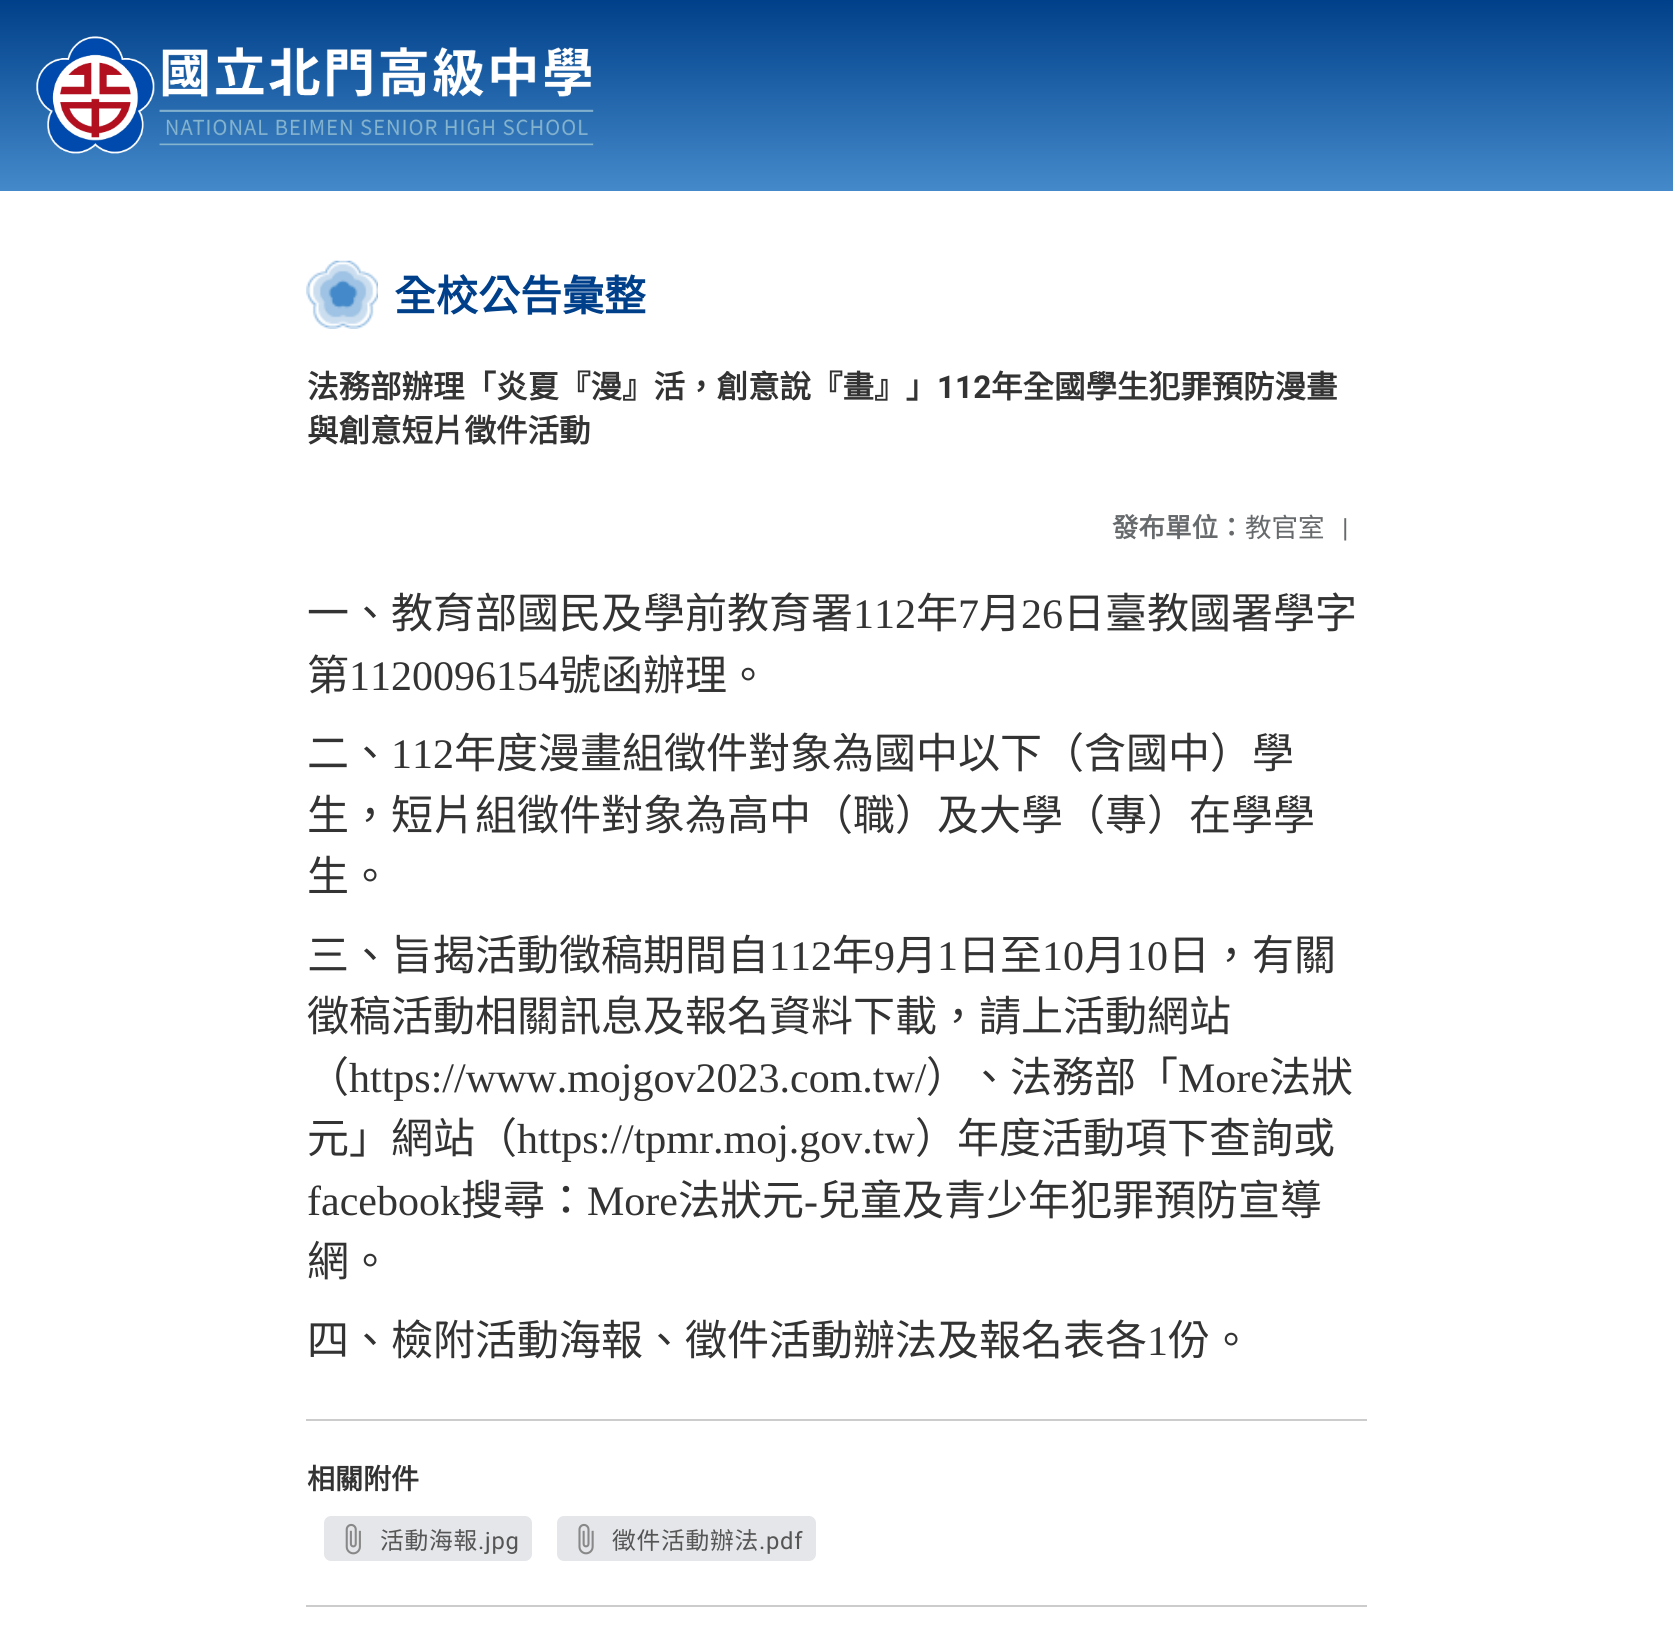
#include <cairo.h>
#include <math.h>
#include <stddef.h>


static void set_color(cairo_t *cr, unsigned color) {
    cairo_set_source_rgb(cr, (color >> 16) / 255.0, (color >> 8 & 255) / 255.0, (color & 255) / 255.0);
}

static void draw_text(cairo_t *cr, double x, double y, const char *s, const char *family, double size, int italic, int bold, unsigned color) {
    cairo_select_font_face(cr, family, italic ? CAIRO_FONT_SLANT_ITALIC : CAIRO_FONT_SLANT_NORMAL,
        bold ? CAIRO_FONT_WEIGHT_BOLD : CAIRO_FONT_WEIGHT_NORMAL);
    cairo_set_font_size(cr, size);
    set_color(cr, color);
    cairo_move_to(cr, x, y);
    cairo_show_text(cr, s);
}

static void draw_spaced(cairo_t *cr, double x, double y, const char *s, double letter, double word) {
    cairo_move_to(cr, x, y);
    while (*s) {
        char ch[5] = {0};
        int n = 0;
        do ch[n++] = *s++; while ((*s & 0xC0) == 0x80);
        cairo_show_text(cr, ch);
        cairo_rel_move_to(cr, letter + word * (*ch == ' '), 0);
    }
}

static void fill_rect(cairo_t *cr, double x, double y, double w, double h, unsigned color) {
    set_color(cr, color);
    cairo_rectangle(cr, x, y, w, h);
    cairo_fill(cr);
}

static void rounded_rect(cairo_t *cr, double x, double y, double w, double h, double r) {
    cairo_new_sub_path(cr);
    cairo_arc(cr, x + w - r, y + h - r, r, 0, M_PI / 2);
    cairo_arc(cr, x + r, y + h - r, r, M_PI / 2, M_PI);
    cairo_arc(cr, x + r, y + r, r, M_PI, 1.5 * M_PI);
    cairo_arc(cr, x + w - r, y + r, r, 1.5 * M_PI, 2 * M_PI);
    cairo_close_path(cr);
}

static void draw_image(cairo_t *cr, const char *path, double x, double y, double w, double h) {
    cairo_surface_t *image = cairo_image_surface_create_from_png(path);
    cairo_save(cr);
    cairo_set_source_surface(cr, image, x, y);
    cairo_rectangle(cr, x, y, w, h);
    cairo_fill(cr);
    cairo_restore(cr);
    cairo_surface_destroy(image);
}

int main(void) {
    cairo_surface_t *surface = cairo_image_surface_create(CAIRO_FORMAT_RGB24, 1673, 1646);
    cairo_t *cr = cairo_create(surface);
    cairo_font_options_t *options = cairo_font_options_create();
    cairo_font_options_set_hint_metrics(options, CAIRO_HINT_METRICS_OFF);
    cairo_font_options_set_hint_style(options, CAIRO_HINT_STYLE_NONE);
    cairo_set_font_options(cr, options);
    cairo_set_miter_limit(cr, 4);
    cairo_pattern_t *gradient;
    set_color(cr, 0xFFFFFF);
    cairo_paint(cr);
    gradient = cairo_pattern_create_linear(837, 0, 837, 191);
    cairo_pattern_add_color_stop_rgba(gradient, 0, 0, 0.251, 0.541, 1);
    cairo_pattern_add_color_stop_rgba(gradient, 1, 0.267, 0.541, 0.792, 1);
    cairo_set_source(cr, gradient);
    cairo_pattern_destroy(gradient);
    cairo_rectangle(cr, 0, 0, 1673, 191);
    cairo_fill(cr);
    draw_image(cr, "assets/img1.png", 36, 36, 558, 118);
    draw_image(cr, "assets/img2.png", 306, 260, 72, 69);
    draw_text(cr, 394, 311, "全校公告彙整", "Noto Sans CJK TC", 42, 0, 1, 0x00408B);
    draw_text(cr, 307, 398, "法務部辦理「炎夏『漫』活，創意說『畫』」", "Noto Sans CJK TC", 31.5, 0, 1, 0x333333);
    draw_text(cr, 937, 398, "112", "Roboto", 31.5, 0, 1, 0x333333);
    draw_text(cr, 991, 398, "年全國學生犯罪預防漫畫", "Noto Sans CJK TC", 31.5, 0, 1, 0x333333);
    draw_text(cr, 307, 442, "與創意短片徵件活動", "Noto Sans CJK TC", 31.5, 0, 1, 0x333333);
    draw_text(cr, 1112, 537, "發布單位：", "Noto Sans CJK TC", 26.5, 0, 1, 0x676A6C);
    draw_text(cr, 1245, 537, "教官室", "Noto Sans CJK TC", 26.5, 0, 0, 0x676A6C);
    draw_text(cr, 1342, 537, "|", "Roboto", 26.5, 0, 0, 0x676A6C);
    draw_text(cr, 307, 628, "一、教育部國民及學前教育署", "Noto Sans CJK TC", 42, 0, 0, 0x333333);
    draw_text(cr, 853, 628, "112", "Liberation Serif", 42, 0, 0, 0x333333);
    draw_text(cr, 916, 628, "年", "Noto Sans CJK TC", 42, 0, 0, 0x333333);
    draw_text(cr, 958, 628, "7", "Liberation Serif", 42, 0, 0, 0x333333);
    draw_text(cr, 979, 628, "月", "Noto Sans CJK TC", 42, 0, 0, 0x333333);
    draw_text(cr, 1021, 628, "26", "Liberation Serif", 42, 0, 0, 0x333333);
    draw_text(cr, 1063, 628, "日臺教國署學字", "Noto Sans CJK TC", 42, 0, 0, 0x333333);
    draw_text(cr, 307, 690, "第", "Noto Sans CJK TC", 42, 0, 0, 0x333333);
    draw_text(cr, 349, 690, "1120096154", "Liberation Serif", 42, 0, 0, 0x333333);
    draw_text(cr, 559, 690, "號函辦理。", "Noto Sans CJK TC", 42, 0, 0, 0x333333);
    draw_text(cr, 307, 768, "二、", "Noto Sans CJK TC", 42, 0, 0, 0x333333);
    draw_text(cr, 391, 768, "112", "Liberation Serif", 42, 0, 0, 0x333333);
    draw_text(cr, 454, 768, "年度漫畫組徵件對象為國中以下（含國中）學", "Noto Sans CJK TC", 42, 0, 0, 0x333333);
    draw_text(cr, 307, 830, "生，短片組徵件對象為高中（職）及大學（專）在學學", "Noto Sans CJK TC", 42, 0, 0, 0x333333);
    draw_text(cr, 307, 891, "生。", "Noto Sans CJK TC", 42, 0, 0, 0x333333);
    draw_text(cr, 307, 970, "三、旨揭活動徵稿期間自", "Noto Sans CJK TC", 42, 0, 0, 0x333333);
    draw_text(cr, 769, 970, "112", "Liberation Serif", 42, 0, 0, 0x333333);
    draw_text(cr, 832, 970, "年", "Noto Sans CJK TC", 42, 0, 0, 0x333333);
    draw_text(cr, 874, 970, "9", "Liberation Serif", 42, 0, 0, 0x333333);
    draw_text(cr, 895, 970, "月", "Noto Sans CJK TC", 42, 0, 0, 0x333333);
    draw_text(cr, 937, 970, "1", "Liberation Serif", 42, 0, 0, 0x333333);
    draw_text(cr, 958, 970, "日至", "Noto Sans CJK TC", 42, 0, 0, 0x333333);
    draw_text(cr, 1042, 970, "10", "Liberation Serif", 42, 0, 0, 0x333333);
    draw_text(cr, 1084, 970, "月", "Noto Sans CJK TC", 42, 0, 0, 0x333333);
    draw_text(cr, 1126, 970, "10", "Liberation Serif", 42, 0, 0, 0x333333);
    draw_text(cr, 1168, 970, "日，有關", "Noto Sans CJK TC", 42, 0, 0, 0x333333);
    draw_text(cr, 307, 1031, "徵稿活動相關訊息及報名資料下載，請上活動網站", "Noto Sans CJK TC", 42, 0, 0, 0x333333);
    draw_text(cr, 307, 1092, "（", "Noto Sans CJK TC", 42, 0, 0, 0x333333);
    draw_text(cr, 349, 1092, "https://www.mojgov2023.com.tw/", "Liberation Serif", 42, 0, 0, 0x333333);
    draw_text(cr, 926, 1092, "）、法務部「", "Noto Sans CJK TC", 42, 0, 0, 0x333333);
    draw_text(cr, 1178, 1092, "More", "Liberation Serif", 42, 0, 0, 0x333333);
    draw_text(cr, 1269, 1092, "法狀", "Noto Sans CJK TC", 42, 0, 0, 0x333333);
    draw_text(cr, 307, 1153, "元」網站（", "Noto Sans CJK TC", 42, 0, 0, 0x333333);
    draw_text(cr, 517, 1153, "https://tpmr.moj.gov.tw", "Liberation Serif", 42, 0, 0, 0x333333);
    draw_text(cr, 915, 1153, "）年度活動項下查詢或", "Noto Sans CJK TC", 42, 0, 0, 0x333333);
    draw_text(cr, 307, 1215, "facebook", "Liberation Serif", 42, 0, 0, 0x333333);
    draw_text(cr, 461, 1215, "搜尋：", "Noto Sans CJK TC", 42, 0, 0, 0x333333);
    draw_text(cr, 587, 1215, "More", "Liberation Serif", 42, 0, 0, 0x333333);
    draw_text(cr, 678, 1215, "法狀元", "Noto Sans CJK TC", 42, 0, 0, 0x333333);
    draw_text(cr, 804, 1215, "-", "Liberation Serif", 42, 0, 0, 0x333333);
    draw_text(cr, 818, 1215, "兒童及青少年犯罪預防宣導", "Noto Sans CJK TC", 42, 0, 0, 0x333333);
    draw_text(cr, 307, 1276, "網。", "Noto Sans CJK TC", 42, 0, 0, 0x333333);
    draw_text(cr, 307, 1355, "四、檢附活動海報、徵件活動辦法及報名表各", "Noto Sans CJK TC", 42, 0, 0, 0x333333);
    draw_text(cr, 1147, 1355, "1", "Liberation Serif", 42, 0, 0, 0x333333);
    draw_text(cr, 1168, 1355, "份。", "Noto Sans CJK TC", 42, 0, 0, 0x333333);
    fill_rect(cr, 306, 1419, 1061, 2, 0xCCCCCC);
    draw_text(cr, 307, 1489, "相關附件", "Noto Sans CJK TC", 28, 0, 1, 0x333333);
    set_color(cr, 0xE5E6E9);
    rounded_rect(cr, 325, 1517, 206, 43, 6);
    cairo_fill_preserve(cr);
    cairo_stroke(cr);
    draw_image(cr, "assets/img3.png", 345, 1523, 16, 32);
    cairo_select_font_face(cr, "Noto Sans CJK TC", CAIRO_FONT_SLANT_NORMAL, CAIRO_FONT_WEIGHT_NORMAL);
    cairo_set_font_size(cr, 23.75);
    set_color(cr, 0x555555);
    draw_spaced(cr, 380, 1549, "活動海報", 0.75, 0);
    cairo_select_font_face(cr, "Roboto", CAIRO_FONT_SLANT_NORMAL, CAIRO_FONT_WEIGHT_NORMAL);
    draw_spaced(cr, 478, 1549, ".jpg", 0.75, 0);
    set_color(cr, 0xE5E6E9);
    rounded_rect(cr, 558, 1517, 257, 43, 6);
    cairo_fill_preserve(cr);
    cairo_stroke(cr);
    draw_image(cr, "assets/img4.png", 578, 1523, 16, 32);
    cairo_select_font_face(cr, "Noto Sans CJK TC", CAIRO_FONT_SLANT_NORMAL, CAIRO_FONT_WEIGHT_NORMAL);
    set_color(cr, 0x555555);
    draw_spaced(cr, 612, 1549, "徵件活動辦法", 0.75, 0);
    cairo_select_font_face(cr, "Roboto", CAIRO_FONT_SLANT_NORMAL, CAIRO_FONT_WEIGHT_NORMAL);
    draw_spaced(cr, 759, 1549, ".pdf", 0.75, 0);
    fill_rect(cr, 306, 1605, 1061, 2, 0xCCCCCC);
    cairo_surface_write_to_png(surface, "output.png");
    cairo_font_options_destroy(options);
    cairo_destroy(cr);
    cairo_surface_destroy(surface);
    return 0;
}
